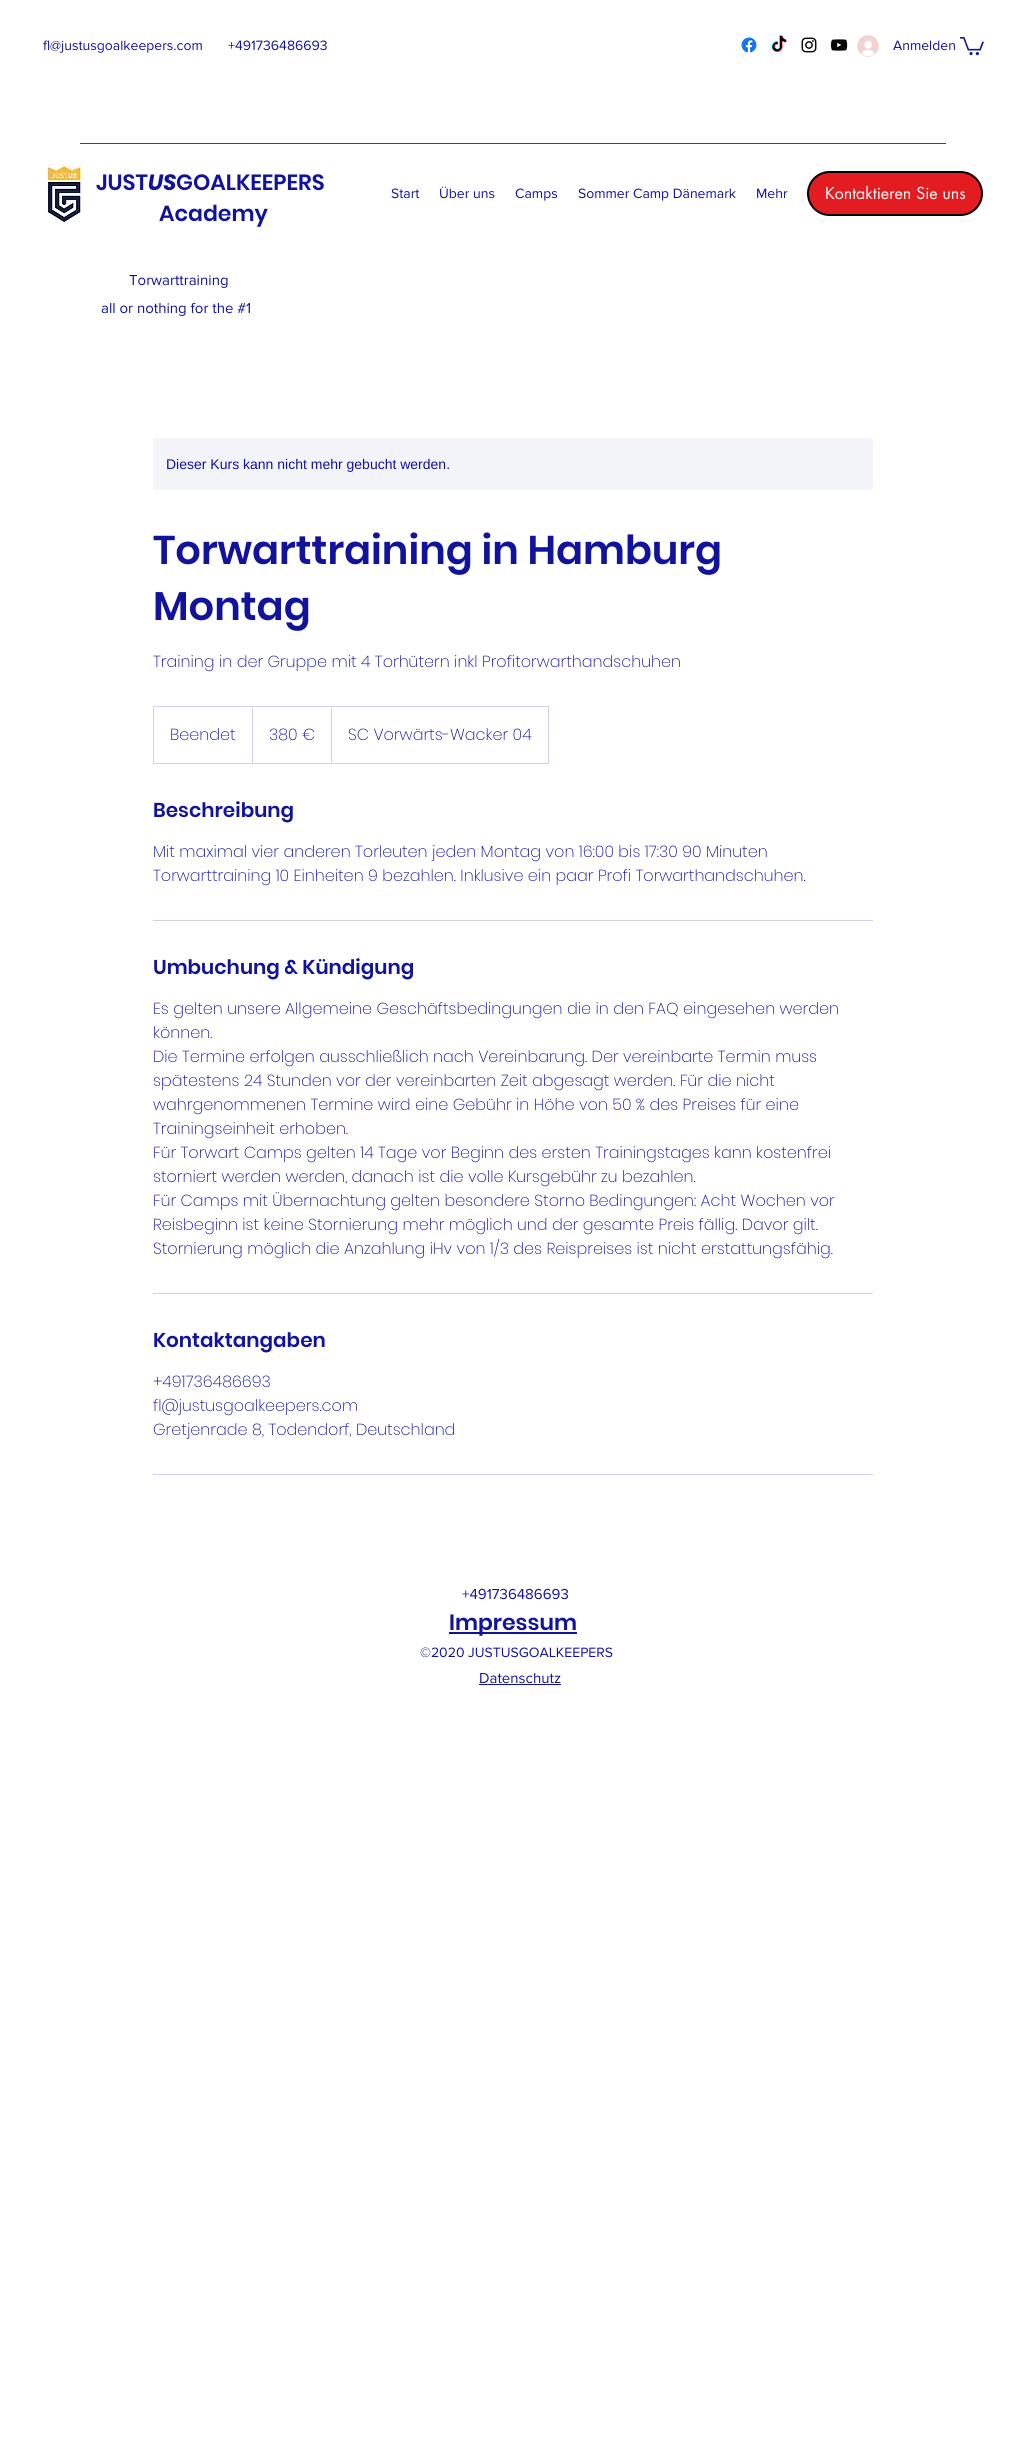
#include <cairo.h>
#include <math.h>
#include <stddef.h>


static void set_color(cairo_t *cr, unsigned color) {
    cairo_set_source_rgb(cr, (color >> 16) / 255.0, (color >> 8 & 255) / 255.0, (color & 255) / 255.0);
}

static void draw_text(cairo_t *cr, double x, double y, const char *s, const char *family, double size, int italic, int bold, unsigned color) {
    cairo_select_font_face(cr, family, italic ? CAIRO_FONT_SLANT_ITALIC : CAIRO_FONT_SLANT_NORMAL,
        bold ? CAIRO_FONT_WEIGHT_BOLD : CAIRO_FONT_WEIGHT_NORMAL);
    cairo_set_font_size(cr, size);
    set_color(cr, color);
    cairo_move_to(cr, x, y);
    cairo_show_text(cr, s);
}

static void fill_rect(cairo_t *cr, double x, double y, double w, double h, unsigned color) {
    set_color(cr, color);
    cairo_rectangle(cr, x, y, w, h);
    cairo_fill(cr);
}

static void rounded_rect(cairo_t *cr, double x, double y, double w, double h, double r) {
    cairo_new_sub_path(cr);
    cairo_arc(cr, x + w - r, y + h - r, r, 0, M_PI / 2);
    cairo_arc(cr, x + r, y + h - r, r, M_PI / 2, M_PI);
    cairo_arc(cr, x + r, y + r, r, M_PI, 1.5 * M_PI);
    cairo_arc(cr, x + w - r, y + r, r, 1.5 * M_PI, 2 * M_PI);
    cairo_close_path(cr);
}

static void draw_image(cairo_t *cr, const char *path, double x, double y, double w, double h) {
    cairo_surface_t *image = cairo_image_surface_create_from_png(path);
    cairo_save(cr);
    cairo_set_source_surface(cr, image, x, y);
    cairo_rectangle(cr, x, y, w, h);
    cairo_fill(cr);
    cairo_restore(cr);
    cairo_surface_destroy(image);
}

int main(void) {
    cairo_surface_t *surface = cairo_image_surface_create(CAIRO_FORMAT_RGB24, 1026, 2443);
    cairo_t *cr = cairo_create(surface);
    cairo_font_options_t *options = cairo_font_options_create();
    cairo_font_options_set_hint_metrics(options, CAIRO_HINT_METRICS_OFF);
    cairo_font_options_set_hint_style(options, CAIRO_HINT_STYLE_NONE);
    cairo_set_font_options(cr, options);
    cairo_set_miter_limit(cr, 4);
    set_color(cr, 0xFFFFFF);
    cairo_paint(cr);
    draw_text(cr, 43, 50, "fl@justusgoalkeepers.com", "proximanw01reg", 14, 0, 0, 0x12139C);
    draw_text(cr, 228, 50, "+491736486693", "proximanw01reg", 14, 0, 0, 0x12139C);
    draw_image(cr, "assets/img1.png", 741, 37, 16, 16);
    draw_image(cr, "assets/img2.png", 771, 35, 16, 18);
    draw_image(cr, "assets/img3.png", 801, 37, 16, 16);
    draw_image(cr, "assets/img4.png", 830, 39, 18, 12);
    draw_image(cr, "assets/img5.png", 857, 35, 22, 22);
    draw_text(cr, 893, 50, "Anmelden", "proximanw01reg", 14, 0, 0, 0x12139C);
    draw_image(cr, "assets/img6.png", 960, 37, 24, 19);
    fill_rect(cr, 80, 143, 866, 1, 0x3636AB);
    draw_image(cr, "assets/img7.png", 43, 164, 41, 59);
    draw_text(cr, 96, 190, "JUST", "Poppins SemiBold", 22, 0, 0, 0x12139C);
    draw_text(cr, 148, 190, "US", "Poppins", 22, 1, 1, 0x12139C);
    draw_text(cr, 176, 190, "GOALKEEPERS", "Poppins SemiBold", 22, 0, 0, 0x12139C);
    draw_text(cr, 159, 221, "Academy", "Poppins SemiBold", 22, 0, 0, 0x12139C);
    draw_text(cr, 129, 285, "Torwarttraining", "proximanw01reg", 15, 0, 0, 0x12139C);
    draw_text(cr, 101, 313, "all or nothing for the #1", "proximanw01reg", 15, 0, 0, 0x12139C);
    draw_text(cr, 391, 198, "Start", "proximanw01reg", 14, 0, 0, 0x12139C);
    draw_text(cr, 439, 198, "Über uns", "proximanw01reg", 14, 0, 0, 0x12139C);
    draw_text(cr, 515, 198, "Camps", "proximanw01reg", 14, 0, 0, 0x12139C);
    draw_text(cr, 578, 198, "Sommer Camp Dänemark", "proximanw01reg", 14, 0, 0, 0x12139C);
    draw_text(cr, 756, 198, "Mehr", "proximanw01reg", 14, 0, 0, 0x12139C);
    set_color(cr, 0xE21C21);
    rounded_rect(cr, 808, 172, 174, 43, 21.5);
    cairo_fill_preserve(cr);
    set_color(cr, 0x000000);
    cairo_stroke(cr);
    draw_text(cr, 825, 199, "Kontaktieren Sie uns", "futura", 16, 0, 0, 0xFFFFFF);
    set_color(cr, 0xF3F3FA);
    rounded_rect(cr, 153.5, 438.5, 719, 51, 1.5);
    cairo_fill_preserve(cr);
    set_color(cr, 0xF8F8FC);
    cairo_set_line_width(cr, 1);
    cairo_stroke(cr);
    draw_text(cr, 166, 469, "Dieser Kurs kann nicht mehr gebucht werden.", "Liberation Sans", 14, 0, 0, 0x12139C);
    draw_text(cr, 153, 564, "Torwarttraining in Hamburg", "Poppins SemiBold", 40, 0, 0, 0x12139C);
    draw_text(cr, 153, 620, "Montag", "Poppins SemiBold", 40, 0, 0, 0x12139C);
    draw_text(cr, 153, 667, "Training in der Gruppe mit 4 Torhütern inkl Profitorwarthandschuhen", "Poppins ExtraLight", 16, 0, 0, 0x12139C);
    cairo_rectangle(cr, 153.5, 706.5, 395, 57);
    set_color(cr, 0xD0D0EB);
    cairo_stroke(cr);
    draw_text(cr, 170, 740, "Beendet", "Poppins ExtraLight", 16, 0, 0, 0x12139C);
    set_color(cr, 0xD0D0EB);
    cairo_new_path(cr);
    cairo_move_to(cr, 252, 763);
    cairo_line_to(cr, 252, 706);
    cairo_line_to(cr, 253, 707);
    cairo_line_to(cr, 253, 763);
    cairo_close_path(cr);
    cairo_fill(cr);
    draw_text(cr, 269, 740, "380 €", "Poppins ExtraLight", 16, 0, 0, 0x12139C);
    set_color(cr, 0xD0D0EB);
    cairo_new_path(cr);
    cairo_move_to(cr, 331, 763);
    cairo_line_to(cr, 331, 706);
    cairo_line_to(cr, 332, 707);
    cairo_line_to(cr, 332, 763);
    cairo_close_path(cr);
    cairo_fill(cr);
    draw_text(cr, 348, 740, "SC Vorwärts-Wacker 04", "Poppins ExtraLight", 16, 0, 0, 0x12139C);
    draw_text(cr, 153, 817, "Beschreibung", "Poppins SemiBold", 20, 0, 0, 0x12139C);
    draw_text(cr, 153, 857, "Mit maximal vier anderen Torleuten jeden Montag von 16:00 bis 17:30 90 Minuten", "Poppins ExtraLight", 16, 0, 0, 0x12139C);
    draw_text(cr, 153, 881, "Torwarttraining 10 Einheiten 9 bezahlen. Inklusive ein paar Profi Torwarthandschuhen.", "Poppins ExtraLight", 16, 0, 0, 0x12139C);
    fill_rect(cr, 153, 920, 720, 1, 0xD0D0EB);
    draw_text(cr, 153, 974, "Umbuchung & Kündigung", "Poppins SemiBold", 20, 0, 0, 0x12139C);
    draw_text(cr, 153, 1014, "Es gelten unsere Allgemeine Geschäftsbedingungen die in den FAQ eingesehen werden", "Poppins ExtraLight", 16, 0, 0, 0x12139C);
    draw_text(cr, 153, 1038, "können.", "Poppins ExtraLight", 16, 0, 0, 0x12139C);
    draw_text(cr, 153, 1062, "Die Termine erfolgen ausschließlich nach Vereinbarung. Der vereinbarte Termin muss", "Poppins ExtraLight", 16, 0, 0, 0x12139C);
    draw_text(cr, 153, 1086, "spätestens 24 Stunden vor der vereinbarten Zeit abgesagt werden. Für die nicht", "Poppins ExtraLight", 16, 0, 0, 0x12139C);
    draw_text(cr, 153, 1110, "wahrgenommenen Termine wird eine Gebühr in Höhe von 50 % des Preises für eine", "Poppins ExtraLight", 16, 0, 0, 0x12139C);
    draw_text(cr, 153, 1134, "Trainingseinheit erhoben.", "Poppins ExtraLight", 16, 0, 0, 0x12139C);
    draw_text(cr, 153, 1158, "Für Torwart Camps gelten 14 Tage vor Beginn des ersten Trainingstages kann kostenfrei", "Poppins ExtraLight", 16, 0, 0, 0x12139C);
    draw_text(cr, 153, 1182, "storniert werden werden, danach ist die volle Kursgebühr zu bezahlen.", "Poppins ExtraLight", 16, 0, 0, 0x12139C);
    draw_text(cr, 153, 1206, "Für Camps mit Übernachtung gelten besondere Storno Bedingungen: Acht Wochen vor", "Poppins ExtraLight", 16, 0, 0, 0x12139C);
    draw_text(cr, 153, 1230, "Reisbeginn ist keine Stornierung mehr möglich und der gesamte Preis fällig. Davor gilt.", "Poppins ExtraLight", 16, 0, 0, 0x12139C);
    draw_text(cr, 153, 1254, "Stornierung möglich die Anzahlung iHv von 1/3 des Reispreises ist nicht erstattungsfähig.", "Poppins ExtraLight", 16, 0, 0, 0x12139C);
    fill_rect(cr, 153, 1293, 720, 1, 0xD0D0EB);
    draw_text(cr, 153, 1347, "Kontaktangaben", "Poppins SemiBold", 20, 0, 0, 0x12139C);
    draw_text(cr, 153, 1387, "+491736486693", "Poppins ExtraLight", 16, 0, 0, 0x12139C);
    draw_text(cr, 153, 1411, "fl@justusgoalkeepers.com", "Poppins ExtraLight", 16, 0, 0, 0x12139C);
    draw_text(cr, 153, 1435, "Gretjenrade 8, Todendorf, Deutschland", "Poppins ExtraLight", 16, 0, 0, 0x12139C);
    fill_rect(cr, 153, 1474, 720, 1, 0xD0D0EB);
    draw_text(cr, 462, 1599, "+491736486693", "proximanw01reg", 15, 0, 0, 0x12139C);
    fill_rect(cr, 449, 1632, 128, 2, 0x12139C);
    draw_text(cr, 449, 1630, "Impressum", "Poppins SemiBold", 22, 0, 0, 0x12139C);
    draw_text(cr, 420, 1657, "©2020 JUSTUSGOALKEEPERS", "proximanw01reg", 14, 0, 0, 0x12139C);
    draw_text(cr, 479, 1683, "Datenschutz", "proximanw01reg", 15, 0, 0, 0x12139C);
    fill_rect(cr, 479, 1684, 82, 1, 0x12139C);
    cairo_surface_write_to_png(surface, "output.png");
    cairo_font_options_destroy(options);
    cairo_destroy(cr);
    cairo_surface_destroy(surface);
    return 0;
}
